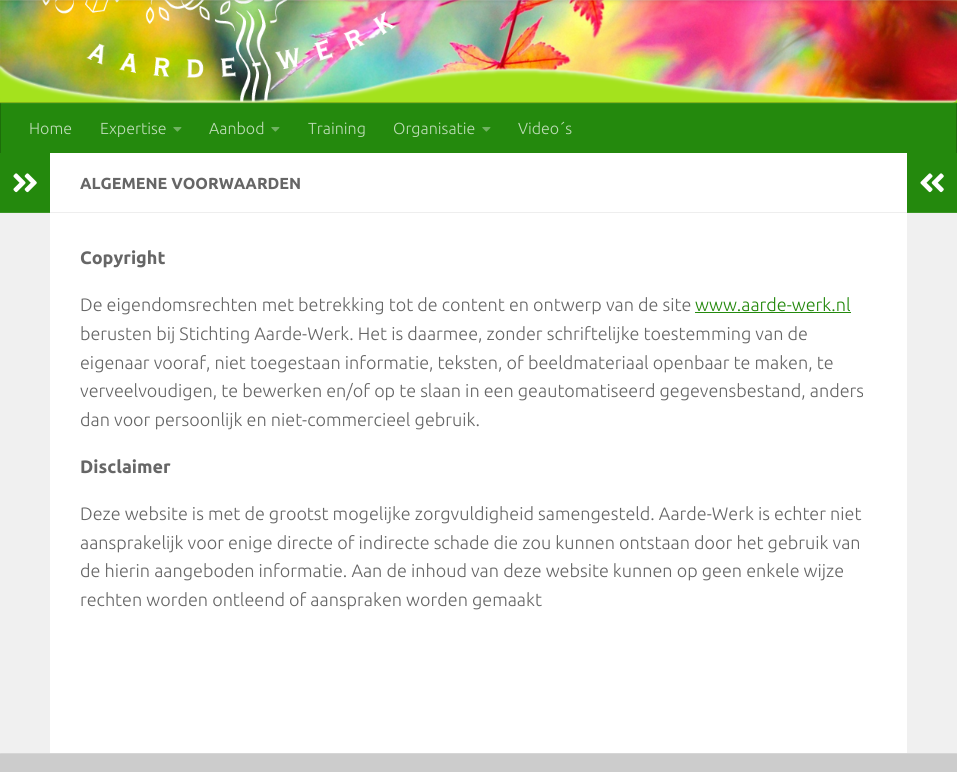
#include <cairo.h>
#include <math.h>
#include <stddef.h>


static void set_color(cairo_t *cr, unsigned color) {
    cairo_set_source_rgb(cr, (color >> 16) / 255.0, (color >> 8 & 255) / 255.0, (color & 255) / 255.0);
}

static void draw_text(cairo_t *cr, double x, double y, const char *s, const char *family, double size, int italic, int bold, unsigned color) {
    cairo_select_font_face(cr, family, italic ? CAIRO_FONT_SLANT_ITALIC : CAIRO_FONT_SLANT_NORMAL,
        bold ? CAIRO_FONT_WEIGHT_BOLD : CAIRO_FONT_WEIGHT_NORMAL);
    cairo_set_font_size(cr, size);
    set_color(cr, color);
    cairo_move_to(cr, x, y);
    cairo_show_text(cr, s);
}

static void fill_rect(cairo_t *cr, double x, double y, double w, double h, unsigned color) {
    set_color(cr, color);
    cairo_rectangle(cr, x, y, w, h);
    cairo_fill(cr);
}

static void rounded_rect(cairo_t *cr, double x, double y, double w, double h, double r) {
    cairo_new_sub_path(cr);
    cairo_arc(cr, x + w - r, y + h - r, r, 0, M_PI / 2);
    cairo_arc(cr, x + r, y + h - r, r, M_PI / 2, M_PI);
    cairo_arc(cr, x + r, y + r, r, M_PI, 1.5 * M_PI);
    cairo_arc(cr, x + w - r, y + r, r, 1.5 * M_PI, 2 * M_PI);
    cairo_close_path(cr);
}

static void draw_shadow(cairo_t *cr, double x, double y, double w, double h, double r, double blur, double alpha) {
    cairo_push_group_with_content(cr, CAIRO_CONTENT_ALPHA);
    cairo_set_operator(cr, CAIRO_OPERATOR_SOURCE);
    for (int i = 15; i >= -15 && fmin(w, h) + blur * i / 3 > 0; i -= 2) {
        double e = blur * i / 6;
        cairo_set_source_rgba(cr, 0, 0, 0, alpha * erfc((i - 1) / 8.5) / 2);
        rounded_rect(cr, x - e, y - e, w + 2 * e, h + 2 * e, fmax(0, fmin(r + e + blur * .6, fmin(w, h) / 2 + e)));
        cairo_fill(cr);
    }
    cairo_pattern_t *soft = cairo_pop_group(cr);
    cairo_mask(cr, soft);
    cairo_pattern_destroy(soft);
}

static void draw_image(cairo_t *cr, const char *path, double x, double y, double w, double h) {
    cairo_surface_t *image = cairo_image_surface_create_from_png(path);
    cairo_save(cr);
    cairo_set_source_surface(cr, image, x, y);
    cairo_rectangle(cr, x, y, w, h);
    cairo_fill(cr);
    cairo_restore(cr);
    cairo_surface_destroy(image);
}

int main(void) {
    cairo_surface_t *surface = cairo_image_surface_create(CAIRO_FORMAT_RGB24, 957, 772);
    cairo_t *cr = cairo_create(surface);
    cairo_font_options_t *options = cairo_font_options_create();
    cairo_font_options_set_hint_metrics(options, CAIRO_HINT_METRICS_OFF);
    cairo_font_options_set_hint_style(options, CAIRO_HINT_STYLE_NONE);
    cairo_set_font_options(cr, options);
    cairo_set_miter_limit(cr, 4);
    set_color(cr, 0xEAEAEA);
    cairo_paint(cr);
    fill_rect(cr, 0, 98, 957, 5, 0xA4E21D);
    draw_image(cr, "assets/img1.png", 0, 0, 957, 103);
    cairo_set_source_rgba(cr, 1, 1, 1, 0.15);
    cairo_rectangle(cr, 0, 0, 957, 1);
    cairo_fill(cr);
    set_color(cr, 0x000000);
    draw_shadow(cr, 0, -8, 957, 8, 0, 2.5, 0.2);
    cairo_set_source_rgba(cr, 0, 0, 0, 0.2);
    cairo_rectangle(cr, 0, 102, 957, 1);
    cairo_fill(cr);
    set_color(cr, 0x000000);
    draw_shadow(cr, 0, 154, 957, 600, 0, 0.5, 0.1);
    fill_rect(cr, 1, 104, 955, 49, 0x24890D);
    fill_rect(cr, 0, 103, 957, 1, 0x2F8F19);
    fill_rect(cr, 956, 103, 1, 50, 0x1D6E0A);
    fill_rect(cr, 956, 103, 1, 1, 0x287516);
    fill_rect(cr, 0, 103, 1, 50, 0x1D6E0A);
    fill_rect(cr, 0, 103, 1, 1, 0x287516);
    draw_text(cr, 29, 134, "Home", "Ubuntu Light", 16, 0, 0, 0xBDDCB6);
    draw_text(cr, 100, 134, "Expertise", "Ubuntu Light", 16, 0, 0, 0xBDDCB6);
    draw_image(cr, "assets/img2.png", 173, 127, 9, 5);
    draw_text(cr, 209, 134, "Aanbod", "Ubuntu Light", 16, 0, 0, 0xBDDCB6);
    draw_image(cr, "assets/img2.png", 271, 127, 9, 5);
    draw_text(cr, 308, 134, "Training", "Ubuntu Light", 16, 0, 0, 0xBDDCB6);
    draw_text(cr, 393, 134, "Organisatie", "Ubuntu Light", 16, 0, 0, 0xBDDCB6);
    draw_image(cr, "assets/img2.png", 482, 127, 9, 5);
    draw_text(cr, 518, 134, "Video´s", "Ubuntu Light", 16, 0, 0, 0xBDDCB6);
    fill_rect(cr, 50, 153, 857, 600, 0xFFFFFF);
    fill_rect(cr, 0, 213, 50, 540, 0xF0F0F0);
    fill_rect(cr, 0, 153, 50, 59, 0x24890D);
    fill_rect(cr, 0, 212, 50, 1, 0x3A9525);
    draw_image(cr, "assets/img3.png", 13, 173, 24, 20);
    fill_rect(cr, 50, 212, 857, 1, 0xEEEEEE);
    draw_text(cr, 80, 189, "ALGEMENE VOORWAARDEN", "Ubuntu", 16, 0, 1, 0x666666);
    draw_text(cr, 80, 264, "Copyright", "Ubuntu", 18, 0, 1, 0x666666);
    draw_text(cr, 80, 311, "De eigendomsrechten met betrekking tot de content en ontwerp van de site", "Ubuntu Light", 18, 0, 0, 0x666666);
    draw_text(cr, 695, 311, "www.aarde-werk.nl", "Ubuntu Light", 18, 0, 0, 0x24890D);
    fill_rect(cr, 695, 312, 156, 1, 0x24890D);
    draw_text(cr, 80, 340, "berusten bij Stichting Aarde-Werk. Het is daarmee, zonder schriftelijke toestemming van de", "Ubuntu Light", 18, 0, 0, 0x666666);
    draw_text(cr, 80, 369, "eigenaar vooraf, niet toegestaan informatie, teksten, of beeldmateriaal openbaar te maken, te", "Ubuntu Light", 18, 0, 0, 0x666666);
    draw_text(cr, 80, 397, "verveelvoudigen, te bewerken en/of op te slaan in een geautomatiseerd gegevensbestand, anders", "Ubuntu Light", 18, 0, 0, 0x666666);
    draw_text(cr, 80, 426, "dan voor persoonlijk en niet-commercieel gebruik.", "Ubuntu Light", 18, 0, 0, 0x666666);
    draw_text(cr, 80, 473, "Disclaimer", "Ubuntu", 18, 0, 1, 0x666666);
    draw_text(cr, 80, 520, "Deze website is met de grootst mogelijke zorgvuldigheid samengesteld. Aarde-Werk is echter niet", "Ubuntu Light", 18, 0, 0, 0x666666);
    draw_text(cr, 80, 549, "aansprakelijk voor enige directe of indirecte schade die zou kunnen ontstaan door het gebruik van", "Ubuntu Light", 18, 0, 0, 0x666666);
    draw_text(cr, 80, 577, "de hierin aangeboden informatie. Aan de inhoud van deze website kunnen op geen enkele wijze", "Ubuntu Light", 18, 0, 0, 0x666666);
    draw_text(cr, 80, 606, "rechten worden ontleend of aanspraken worden gemaakt", "Ubuntu Light", 18, 0, 0, 0x666666);
    fill_rect(cr, 907, 153, 50, 59, 0x24890D);
    fill_rect(cr, 907, 212, 50, 1, 0x3A9525);
    draw_image(cr, "assets/img4.png", 920, 173, 24, 20);
    fill_rect(cr, 907, 213, 50, 540, 0xF0F0F0);
    fill_rect(cr, 0, 754, 957, 18, 0xCCCCCC);
    cairo_surface_write_to_png(surface, "output.png");
    cairo_font_options_destroy(options);
    cairo_destroy(cr);
    cairo_surface_destroy(surface);
    return 0;
}
